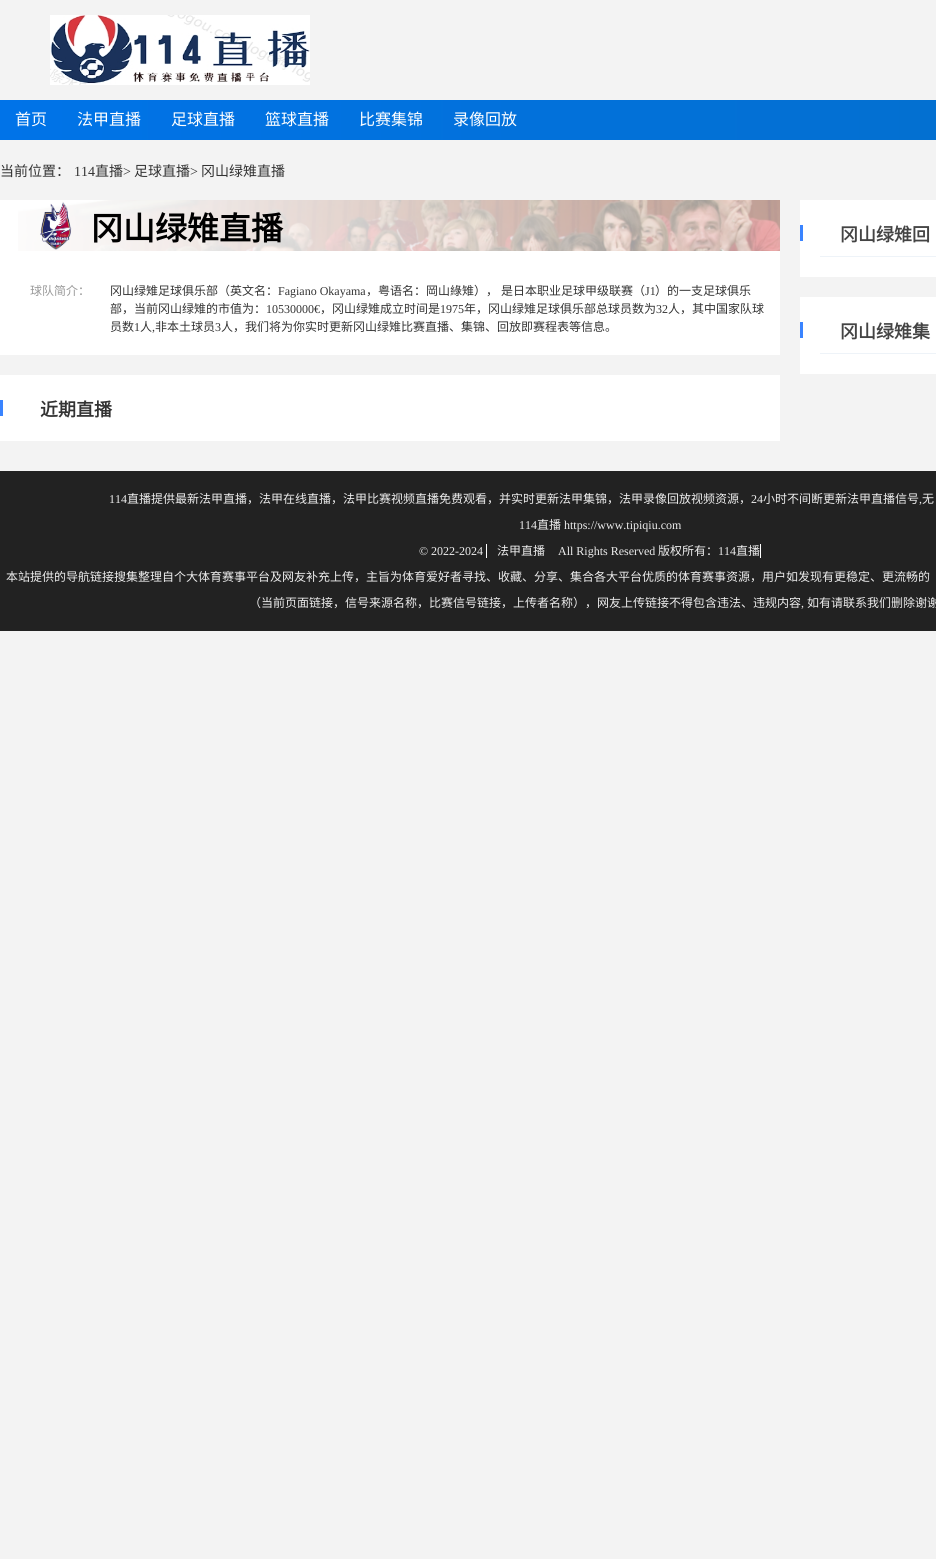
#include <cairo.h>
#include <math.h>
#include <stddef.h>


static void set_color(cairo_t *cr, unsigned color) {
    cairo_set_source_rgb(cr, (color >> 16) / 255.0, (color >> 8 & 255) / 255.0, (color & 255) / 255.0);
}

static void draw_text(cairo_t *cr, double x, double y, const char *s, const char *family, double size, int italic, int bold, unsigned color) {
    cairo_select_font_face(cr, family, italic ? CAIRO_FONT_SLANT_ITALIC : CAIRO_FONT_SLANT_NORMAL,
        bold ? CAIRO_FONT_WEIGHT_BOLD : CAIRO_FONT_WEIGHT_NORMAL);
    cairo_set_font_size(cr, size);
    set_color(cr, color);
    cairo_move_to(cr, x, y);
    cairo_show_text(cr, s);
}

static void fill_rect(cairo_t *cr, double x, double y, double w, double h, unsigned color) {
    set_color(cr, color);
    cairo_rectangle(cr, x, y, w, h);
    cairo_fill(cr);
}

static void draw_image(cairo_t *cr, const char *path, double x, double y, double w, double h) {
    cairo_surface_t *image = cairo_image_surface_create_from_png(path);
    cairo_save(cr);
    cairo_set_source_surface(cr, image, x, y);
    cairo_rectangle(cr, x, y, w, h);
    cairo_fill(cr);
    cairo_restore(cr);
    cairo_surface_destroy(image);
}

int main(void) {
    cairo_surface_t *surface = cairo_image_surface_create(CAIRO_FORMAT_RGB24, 936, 1559);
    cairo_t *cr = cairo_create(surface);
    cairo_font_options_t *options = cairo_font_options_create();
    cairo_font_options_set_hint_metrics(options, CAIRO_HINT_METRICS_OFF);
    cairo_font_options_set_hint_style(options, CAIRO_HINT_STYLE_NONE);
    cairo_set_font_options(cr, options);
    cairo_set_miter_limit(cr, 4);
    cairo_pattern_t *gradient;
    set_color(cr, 0xF3F3F3);
    cairo_paint(cr);
    draw_image(cr, "assets/img1.png", 50, 15, 260, 70);
    gradient = cairo_pattern_create_linear(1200, 120, 0, 120);
    cairo_pattern_add_color_stop_rgba(gradient, 0, 0.016, 0.435, 0.792, 1);
    cairo_pattern_add_color_stop_rgba(gradient, 1, 0, 0.451, 0.91, 1);
    cairo_set_source(cr, gradient);
    cairo_pattern_destroy(gradient);
    cairo_rectangle(cr, 0, 100, 936, 40);
    cairo_fill(cr);
    draw_text(cr, 15, 125, "首页", "Noto Sans CJK SC", 16, 0, 0, 0xFFFFFF);
    draw_text(cr, 77, 125, "法甲直播", "Noto Sans CJK SC", 16, 0, 0, 0xFFFFFF);
    draw_text(cr, 171, 125, "足球直播", "Noto Sans CJK SC", 16, 0, 0, 0xFFFFFF);
    draw_text(cr, 265, 125, "篮球直播", "Noto Sans CJK SC", 16, 0, 0, 0xFFFFFF);
    draw_text(cr, 359, 125, "比赛集锦", "Noto Sans CJK SC", 16, 0, 0, 0xFFFFFF);
    draw_text(cr, 453, 125, "录像回放", "Noto Sans CJK SC", 16, 0, 0, 0xFFFFFF);
    draw_text(cr, 0, 176, "当前位置：", "Noto Sans CJK SC", 14, 0, 0, 0x333333);
    draw_text(cr, 74, 176, "114", "Liberation Serif", 14, 0, 0, 0x333333);
    draw_text(cr, 95, 176, "直播", "Noto Sans CJK SC", 14, 0, 0, 0x333333);
    draw_text(cr, 123, 176, ">", "Liberation Serif", 14, 0, 0, 0x333333);
    draw_text(cr, 134, 176, "足球直播", "Noto Sans CJK SC", 14, 0, 0, 0x333333);
    draw_text(cr, 190, 176, ">", "Liberation Serif", 14, 0, 0, 0x333333);
    draw_text(cr, 201, 176, "冈山绿雉直播", "Noto Sans CJK SC", 14, 0, 0, 0x333333);
    fill_rect(cr, 0, 200, 780, 155, 0xFFFFFF);
    draw_image(cr, "assets/img2.png", 18, 200, 762, 51);
    draw_image(cr, "assets/img3.png", 40, 201, 32, 49);
    draw_text(cr, 91, 240, "冈山绿雉直播", "Noto Sans CJK SC", 32, 0, 1, 0x000000);
    draw_text(cr, 30, 295, "球队简介：", "Noto Sans CJK SC", 12, 0, 0, 0x999999);
    draw_text(cr, 110, 295, "冈山绿雉足球俱乐部（英文名：", "Noto Sans CJK SC", 12, 0, 0, 0x333333);
    draw_text(cr, 278, 295, "Fagiano Okayama", "Liberation Serif", 12, 0, 0, 0x333333);
    draw_text(cr, 366, 295, "，粤语名：岡山綠雉），", "Noto Sans CJK SC", 12, 0, 0, 0x333333);
    draw_text(cr, 501, 295, "是日本职业足球甲级联赛（", "Noto Sans CJK SC", 12, 0, 0, 0x333333);
    draw_text(cr, 645, 295, "J1", "Liberation Serif", 12, 0, 0, 0x333333);
    draw_text(cr, 655, 295, "）的一支足球俱乐", "Noto Sans CJK SC", 12, 0, 0, 0x333333);
    draw_text(cr, 110, 313, "部，当前冈山绿雉的市值为：", "Noto Sans CJK SC", 12, 0, 0, 0x333333);
    draw_text(cr, 266, 313, "10530000€", "Liberation Serif", 12, 0, 0, 0x333333);
    draw_text(cr, 320, 313, "，冈山绿雉成立时间是", "Noto Sans CJK SC", 12, 0, 0, 0x333333);
    draw_text(cr, 440, 313, "1975", "Liberation Serif", 12, 0, 0, 0x333333);
    draw_text(cr, 464, 313, "年，冈山绿雉足球俱乐部总球员数为", "Noto Sans CJK SC", 12, 0, 0, 0x333333);
    draw_text(cr, 656, 313, "32", "Liberation Serif", 12, 0, 0, 0x333333);
    draw_text(cr, 668, 313, "人，其中国家队球", "Noto Sans CJK SC", 12, 0, 0, 0x333333);
    draw_text(cr, 110, 331, "员数", "Noto Sans CJK SC", 12, 0, 0, 0x333333);
    draw_text(cr, 134, 331, "1", "Liberation Serif", 12, 0, 0, 0x333333);
    draw_text(cr, 140, 331, "人", "Noto Sans CJK SC", 12, 0, 0, 0x333333);
    draw_text(cr, 152, 331, ",", "Liberation Serif", 12, 0, 0, 0x333333);
    draw_text(cr, 155, 331, "非本土球员", "Noto Sans CJK SC", 12, 0, 0, 0x333333);
    draw_text(cr, 215, 331, "3", "Liberation Serif", 12, 0, 0, 0x333333);
    draw_text(cr, 221, 331, "人，我们将为你实时更新冈山绿雉比赛直播、集锦、回放即赛程表等信息。", "Noto Sans CJK SC", 12, 0, 0, 0x333333);
    fill_rect(cr, 0, 375, 780, 66, 0xFFFFFF);
    fill_rect(cr, 0, 400, 3, 16, 0x3A84FF);
    draw_text(cr, 40, 416, "近期直播", "Noto Sans CJK SC", 18, 0, 1, 0x333333);
    fill_rect(cr, 800, 200, 136, 77, 0xFFFFFF);
    fill_rect(cr, 800, 225, 3, 16, 0x3A84FF);
    draw_text(cr, 840, 241, "冈山绿雉回", "Noto Sans CJK SC", 18, 0, 1, 0x444444);
    fill_rect(cr, 820, 256, 116, 1, 0xEEF3F8);
    fill_rect(cr, 800, 297, 136, 77, 0xFFFFFF);
    fill_rect(cr, 800, 322, 3, 16, 0x3A84FF);
    draw_text(cr, 840, 338, "冈山绿雉集", "Noto Sans CJK SC", 18, 0, 1, 0x444444);
    fill_rect(cr, 820, 353, 116, 1, 0xEEF3F8);
    fill_rect(cr, 0, 471, 936, 160, 0x222222);
    draw_text(cr, 109, 503, "114", "Liberation Serif", 12, 0, 0, 0xEEEEEE);
    draw_text(cr, 127, 503, "直播提供最新法甲直播，法甲在线直播，法甲比赛视频直播免费观看，并实时更新法甲集锦，法甲录像回放视频资源，", "Noto Sans CJK SC", 12, 0, 0, 0xEEEEEE);
    draw_text(cr, 751, 503, "24", "Liberation Serif", 12, 0, 0, 0xEEEEEE);
    draw_text(cr, 763, 503, "小时不间断更新法甲直播信号", "Noto Sans CJK SC", 12, 0, 0, 0xEEEEEE);
    draw_text(cr, 919, 503, ",", "Liberation Serif", 12, 0, 0, 0xEEEEEE);
    draw_text(cr, 922, 503, "无", "Noto Sans CJK SC", 12, 0, 0, 0xEEEEEE);
    draw_text(cr, 519, 529, "114", "Liberation Serif", 12, 0, 0, 0xEEEEEE);
    draw_text(cr, 537, 529, "直播", "Noto Sans CJK SC", 12, 0, 0, 0xEEEEEE);
    draw_text(cr, 564, 529, "https://www.tipiqiu.com", "Liberation Serif", 12, 0, 0, 0xEEEEEE);
    draw_text(cr, 419, 555, "© 2022-2024", "Liberation Serif", 12, 0, 0, 0xEEEEEE);
    draw_text(cr, 497, 555, "法甲直播", "Noto Sans CJK SC", 12, 0, 0, 0xEEEEEE);
    fill_rect(cr, 486, 544, 1, 14, 0xFFFFFF);
    draw_text(cr, 558, 555, "All Rights Reserved", "Liberation Serif", 12, 0, 0, 0xEEEEEE);
    draw_text(cr, 658, 555, "版权所有：", "Noto Sans CJK SC", 12, 0, 0, 0xEEEEEE);
    draw_text(cr, 718, 555, "114", "Liberation Serif", 12, 0, 0, 0xEEEEEE);
    draw_text(cr, 736, 555, "直播", "Noto Sans CJK SC", 12, 0, 0, 0xEEEEEE);
    fill_rect(cr, 760, 544, 1, 14, 0xFFFFFF);
    draw_text(cr, 6, 581, "本站提供的导航链接搜集整理自个大体育赛事平台及网友补充上传，主旨为体育爱好者寻找、收藏、分享、集合各大平台优质的体育赛事资源，用户如发现有更稳定、更流畅的", "Noto Sans CJK SC", 12, 0, 0, 0xEEEEEE);
    draw_text(cr, 249, 607, "（当前页面链接，信号来源名称，比赛信号链接，上传者名称），网友上传链接不得包含违法、违规内容", "Noto Sans CJK SC", 12, 0, 0, 0xEEEEEE);
    draw_text(cr, 801, 607, ",", "Liberation Serif", 12, 0, 0, 0xEEEEEE);
    draw_text(cr, 807, 607, "如有请联系我们删除谢谢", "Noto Sans CJK SC", 12, 0, 0, 0xEEEEEE);
    cairo_surface_write_to_png(surface, "output.png");
    cairo_font_options_destroy(options);
    cairo_destroy(cr);
    cairo_surface_destroy(surface);
    return 0;
}
